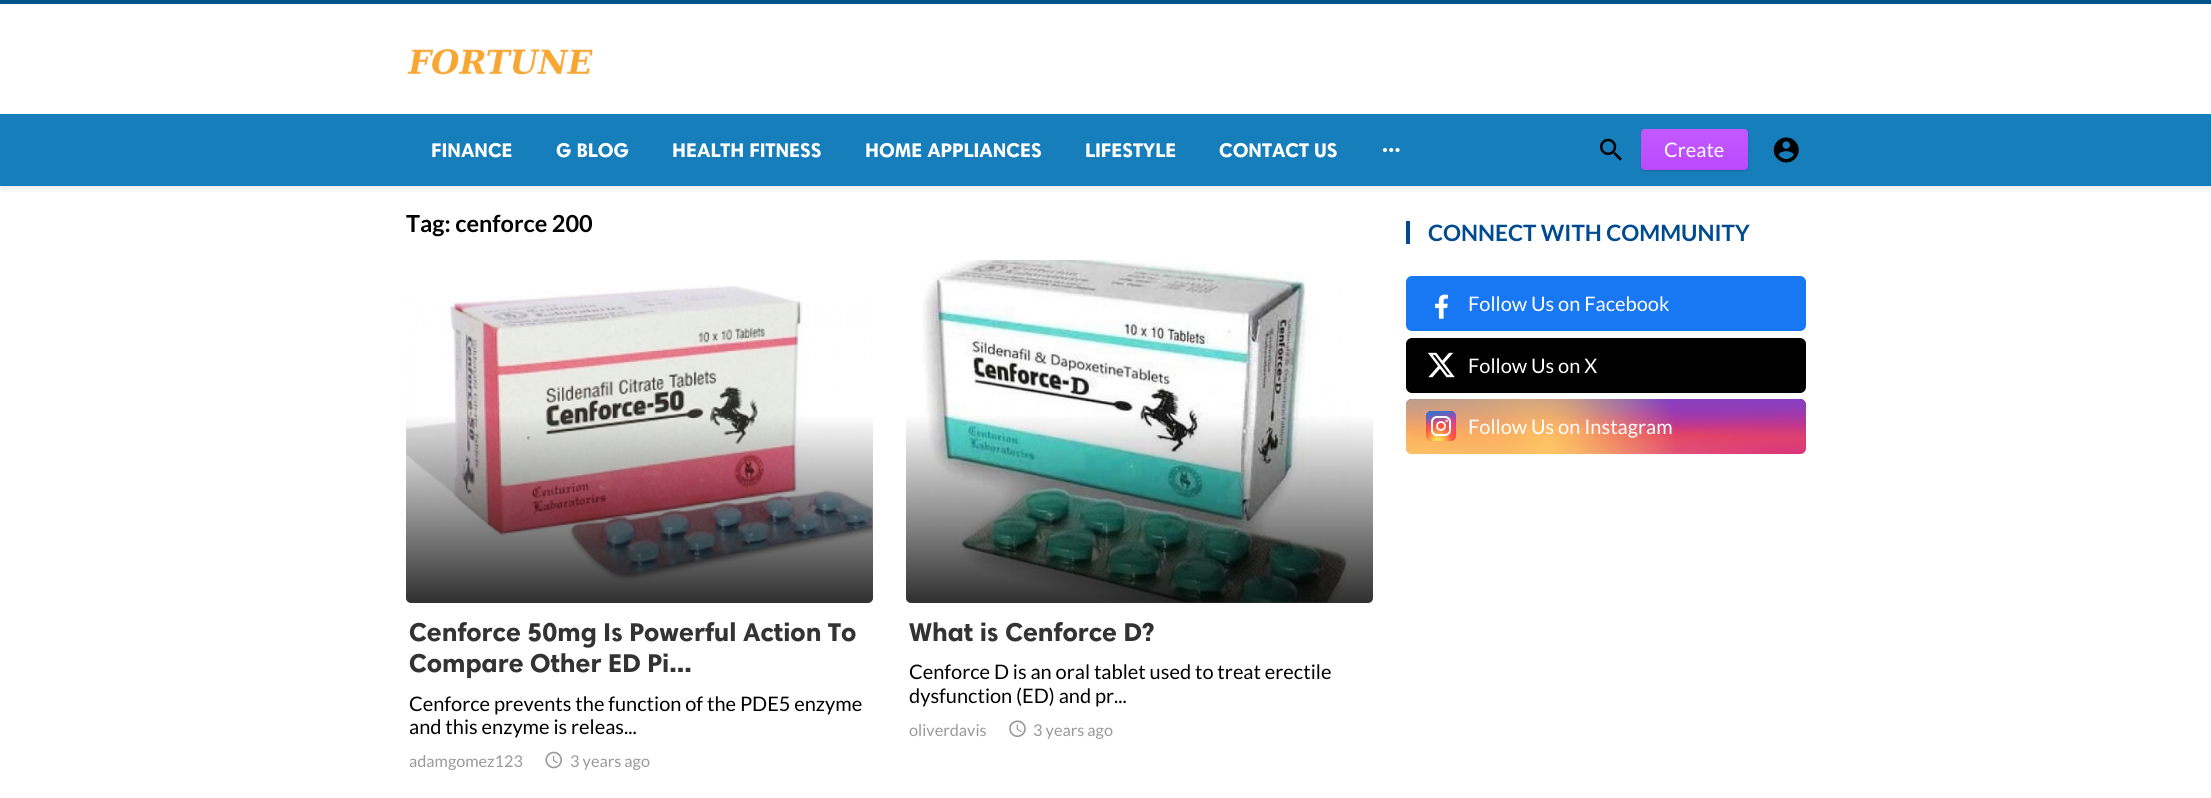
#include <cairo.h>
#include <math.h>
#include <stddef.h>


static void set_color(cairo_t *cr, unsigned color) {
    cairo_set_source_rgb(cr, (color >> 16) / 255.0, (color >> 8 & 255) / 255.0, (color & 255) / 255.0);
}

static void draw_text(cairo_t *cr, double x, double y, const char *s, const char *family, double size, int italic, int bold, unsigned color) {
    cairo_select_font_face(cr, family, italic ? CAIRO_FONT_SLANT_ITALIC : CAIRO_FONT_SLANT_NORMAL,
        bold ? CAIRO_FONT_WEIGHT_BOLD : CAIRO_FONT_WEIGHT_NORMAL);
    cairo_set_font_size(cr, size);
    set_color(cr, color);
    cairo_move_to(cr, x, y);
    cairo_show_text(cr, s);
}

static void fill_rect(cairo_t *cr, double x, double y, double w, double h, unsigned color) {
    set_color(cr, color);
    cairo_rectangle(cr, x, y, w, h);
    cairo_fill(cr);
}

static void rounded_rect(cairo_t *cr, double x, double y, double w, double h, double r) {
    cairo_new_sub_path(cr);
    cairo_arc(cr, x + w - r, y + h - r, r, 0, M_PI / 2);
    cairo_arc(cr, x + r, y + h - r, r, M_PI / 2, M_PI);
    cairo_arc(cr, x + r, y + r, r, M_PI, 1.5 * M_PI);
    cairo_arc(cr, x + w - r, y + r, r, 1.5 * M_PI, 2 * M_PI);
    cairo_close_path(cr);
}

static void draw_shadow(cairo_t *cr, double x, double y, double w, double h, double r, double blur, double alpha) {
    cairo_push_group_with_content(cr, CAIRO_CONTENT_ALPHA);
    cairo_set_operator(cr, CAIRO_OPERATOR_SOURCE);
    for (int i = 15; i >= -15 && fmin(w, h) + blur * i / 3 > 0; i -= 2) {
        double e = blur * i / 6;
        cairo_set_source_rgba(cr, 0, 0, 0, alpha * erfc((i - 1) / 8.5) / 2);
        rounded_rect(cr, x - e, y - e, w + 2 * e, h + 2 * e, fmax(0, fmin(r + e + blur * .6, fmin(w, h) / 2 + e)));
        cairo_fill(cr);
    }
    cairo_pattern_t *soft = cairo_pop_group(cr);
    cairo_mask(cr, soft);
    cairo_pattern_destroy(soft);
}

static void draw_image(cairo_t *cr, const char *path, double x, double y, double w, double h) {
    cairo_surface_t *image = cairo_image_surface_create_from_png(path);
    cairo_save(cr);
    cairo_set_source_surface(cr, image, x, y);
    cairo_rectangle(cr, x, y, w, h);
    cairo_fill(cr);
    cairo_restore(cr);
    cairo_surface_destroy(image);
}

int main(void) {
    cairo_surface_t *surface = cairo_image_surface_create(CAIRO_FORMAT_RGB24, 2211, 798);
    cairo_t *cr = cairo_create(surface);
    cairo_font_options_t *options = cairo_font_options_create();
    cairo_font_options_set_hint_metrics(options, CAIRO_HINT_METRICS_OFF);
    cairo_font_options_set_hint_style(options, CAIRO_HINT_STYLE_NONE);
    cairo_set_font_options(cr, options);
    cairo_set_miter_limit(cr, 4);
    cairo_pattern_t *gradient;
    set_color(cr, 0xFFFFFF);
    cairo_paint(cr);
    cairo_save(cr);
    cairo_rectangle(cr, 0, 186, 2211, 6);
    cairo_clip(cr);
    set_color(cr, 0x000000);
    draw_shadow(cr, 0, 1, 2211, 187, 0, 5, 0.1);
    cairo_restore(cr);
    fill_rect(cr, 0, 0, 2211, 4, 0x00558A);
    draw_image(cr, "assets/img1.png", 407, 49, 186, 26);
    fill_rect(cr, 0, 114, 2211, 72, 0x177EBC);
    draw_text(cr, 431, 157, "FINANCE", "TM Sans", 20, 0, 1, 0xFFFFFF);
    draw_text(cr, 556, 157, "G BLOG", "TM Sans", 20, 0, 1, 0xFFFFFF);
    draw_text(cr, 672, 157, "HEALTH FITNESS", "TM Sans", 20, 0, 1, 0xFFFFFF);
    draw_text(cr, 865, 157, "HOME APPLIANCES", "TM Sans", 20, 0, 1, 0xFFFFFF);
    draw_text(cr, 1085, 157, "LIFESTYLE", "TM Sans", 20, 0, 1, 0xFFFFFF);
    draw_text(cr, 1219, 157, "CONTACT US", "TM Sans", 20, 0, 1, 0xFFFFFF);
    draw_image(cr, "assets/img2.png", 1382, 147, 18, 6);
    draw_image(cr, "assets/img3.png", 1600, 138, 22, 23);
    set_color(cr, 0x000000);
    draw_shadow(cr, 1641, 130, 107, 41, 4, 1, 0.2);
    gradient = cairo_pattern_create_linear(1694, 129, 1694, 170);
    cairo_pattern_add_color_stop_rgba(gradient, 0, 0.757, 0.353, 1, 1);
    cairo_pattern_add_color_stop_rgba(gradient, 1, 0.737, 0.286, 1, 1);
    cairo_set_source(cr, gradient);
    cairo_pattern_destroy(gradient);
    rounded_rect(cr, 1641, 129, 107, 41, 4);
    cairo_fill(cr);
    draw_text(cr, 1664, 157, "Create", "Lato", 20, 0, 0, 0xFFFFFF);
    draw_image(cr, "assets/img4.png", 1773, 137, 26, 26);
    draw_text(cr, 406, 232, "Tag: cenforce 200", "Lato", 23.5, 0, 1, 0x000000);
    draw_image(cr, "assets/img5.png", 406, 285, 467, 296);
    gradient = cairo_pattern_create_linear(639, 260, 639, 603);
    cairo_pattern_add_color_stop_rgba(gradient, 0.45, 0, 0, 0, 0);
    cairo_pattern_add_color_stop_rgba(gradient, 0.99, 0, 0, 0, 0.8);
    cairo_pattern_add_color_stop_rgba(gradient, 1, 0, 0, 0, 0.8);
    cairo_set_source(cr, gradient);
    cairo_pattern_destroy(gradient);
    rounded_rect(cr, 406, 260, 467, 343, 5);
    cairo_fill(cr);
    draw_text(cr, 409, 641, "Cenforce 50mg Is Powerful Action To", "TM Sans", 26, 0, 1, 0x333333);
    draw_text(cr, 409, 672, "Compare Other ED Pi...", "TM Sans", 26, 0, 1, 0x333333);
    draw_text(cr, 409, 711, "Cenforce prevents the function of the PDE5 enzyme", "Lato", 20, 0, 0, 0x000000);
    draw_text(cr, 409, 734, "and this enzyme is releas...", "Lato", 20, 0, 0, 0x000000);
    draw_text(cr, 409, 767, "adamgomez123", "Lato", 16.25, 0, 0, 0x999999);
    draw_image(cr, "assets/img6.png", 545, 751, 17, 18);
    draw_text(cr, 570, 767, "3 years ago", "Lato", 16.25, 0, 0, 0x999999);
    draw_image(cr, "assets/img7.png", 922, 260, 427, 343);
    gradient = cairo_pattern_create_linear(1139, 260, 1139, 603);
    cairo_pattern_add_color_stop_rgba(gradient, 0.45, 0, 0, 0, 0);
    cairo_pattern_add_color_stop_rgba(gradient, 0.99, 0, 0, 0, 0.8);
    cairo_pattern_add_color_stop_rgba(gradient, 1, 0, 0, 0, 0.8);
    cairo_set_source(cr, gradient);
    cairo_pattern_destroy(gradient);
    rounded_rect(cr, 906, 260, 467, 343, 5);
    cairo_fill(cr);
    draw_text(cr, 909, 641, "What is Cenforce D?", "TM Sans", 26, 0, 1, 0x333333);
    draw_text(cr, 909, 679, "Cenforce D is an oral tablet used to treat erectile", "Lato", 20, 0, 0, 0x000000);
    draw_text(cr, 909, 703, "dysfunction (ED) and pr...", "Lato", 20, 0, 0, 0x000000);
    draw_text(cr, 909, 736, "oliverdavis", "Lato", 16.25, 0, 0, 0x999999);
    draw_image(cr, "assets/img8.png", 1009, 720, 17, 18);
    draw_text(cr, 1033, 736, "3 years ago", "Lato", 16.25, 0, 0, 0x999999);
    fill_rect(cr, 1406, 221, 4, 23, 0x004B90);
    draw_text(cr, 1428, 241, "CONNECT WITH COMMUNITY", "Lato", 22.5, 0, 1, 0x004B90);
    set_color(cr, 0x1877F2);
    rounded_rect(cr, 1406, 276, 400, 55, 6);
    cairo_fill(cr);
    draw_image(cr, "assets/img9.png", 1435, 294, 13, 25);
    draw_text(cr, 1468, 311, "Follow Us on Facebook", "Lato", 20, 0, 0, 0xFFFFFF);
    set_color(cr, 0x000000);
    rounded_rect(cr, 1406, 338, 400, 55, 6);
    cairo_fill(cr);
    draw_image(cr, "assets/img10.png", 1427, 352, 28, 26);
    draw_text(cr, 1468, 373, "Follow Us on X", "Lato", 20, 0, 0, 0xFFFFFF);
    gradient = cairo_pattern_create_linear(1606, 399, 1606, 454);
    cairo_pattern_add_color_stop_rgba(gradient, 0, 0.396, 0.349, 0.792, 1);
    cairo_pattern_add_color_stop_rgba(gradient, 0.3, 0.737, 0.192, 0.561, 1);
    cairo_pattern_add_color_stop_rgba(gradient, 0.5, 0.89, 0.247, 0.373, 1);
    cairo_pattern_add_color_stop_rgba(gradient, 0.7, 0.969, 0.463, 0.22, 1);
    cairo_pattern_add_color_stop_rgba(gradient, 1, 0.996, 0.776, 0.427, 1);
    cairo_set_source(cr, gradient);
    cairo_pattern_destroy(gradient);
    rounded_rect(cr, 1406, 399, 400, 55, 6);
    cairo_fill(cr);
    gradient = cairo_pattern_create_radial(0, 0, 0, 0, 0, 1);
    cairo_pattern_set_matrix(gradient, &(cairo_matrix_t){1.0 / 566, 0, 0, 1.0 / 78, -1.0 * 1806 / 566, -1.0 * 454 / 78});
    cairo_pattern_add_color_stop_rgba(gradient, 0, 0.851, 0.192, 0.478, 1);
    cairo_pattern_add_color_stop_rgba(gradient, 1, 0.851, 0.192, 0.478, 0);
    cairo_set_source(cr, gradient);
    cairo_pattern_destroy(gradient);
    rounded_rect(cr, 1406, 399, 400, 55, 6);
    cairo_fill(cr);
    gradient = cairo_pattern_create_radial(0, 0, 0, 0, 0, 1);
    cairo_pattern_set_matrix(gradient, &(cairo_matrix_t){1.0 / 339, 0, 0, 1.0 / 93, -1.0 * 1646 / 339, -1.0 * 388 / 93});
    cairo_pattern_add_color_stop_rgba(gradient, 0, 0.537, 0.239, 0.761, 1);
    cairo_pattern_add_color_stop_rgba(gradient, 0.5, 0.537, 0.239, 0.761, 0);
    cairo_set_source(cr, gradient);
    cairo_pattern_destroy(gradient);
    cairo_rectangle(cr, 1501, 399, 303, 34);
    cairo_fill(cr);
    gradient = cairo_pattern_create_radial(0, 0, 0, 0, 0, 1);
    cairo_pattern_set_matrix(gradient, &(cairo_matrix_t){1.0 / 566, 0, 0, 1.0 / 78, -1.0 * 1806 / 566, -1.0 * 399 / 78});
    cairo_pattern_add_color_stop_rgba(gradient, 0, 0.537, 0.239, 0.761, 1);
    cairo_pattern_add_color_stop_rgba(gradient, 0.5, 0.537, 0.239, 0.761, 0);
    cairo_set_source(cr, gradient);
    cairo_pattern_destroy(gradient);
    rounded_rect(cr, 1406, 399, 400, 55, 6);
    cairo_fill(cr);
    gradient = cairo_pattern_create_radial(0, 0, 0, 0, 0, 1);
    cairo_pattern_set_matrix(gradient, &(cairo_matrix_t){1.0 / 453, 0, 0, 1.0 / 117, -1.0 * 1486 / 453, -1.0 * 371 / 117});
    cairo_pattern_add_color_stop_rgba(gradient, 0, 0.322, 0.345, 0.812, 1);
    cairo_pattern_add_color_stop_rgba(gradient, 0.5, 0.322, 0.345, 0.812, 0);
    cairo_set_source(cr, gradient);
    cairo_pattern_destroy(gradient);
    rounded_rect(cr, 1406, 399, 400, 55, 6);
    cairo_fill(cr);
    gradient = cairo_pattern_create_radial(0, 0, 0, 0, 0, 1);
    cairo_pattern_set_matrix(gradient, &(cairo_matrix_t){1.0 / 566, 0, 0, 1.0 / 97, -1.0 * 1406 / 566, -1.0 * 385 / 97});
    cairo_pattern_add_color_stop_rgba(gradient, 0, 0.322, 0.345, 0.812, 1);
    cairo_pattern_add_color_stop_rgba(gradient, 0.5, 0.322, 0.345, 0.812, 0);
    cairo_set_source(cr, gradient);
    cairo_pattern_destroy(gradient);
    rounded_rect(cr, 1406, 399, 400, 55, 6);
    cairo_fill(cr);
    gradient = cairo_pattern_create_radial(1406, 476, 0, 1406, 476, 407);
    cairo_pattern_add_color_stop_rgba(gradient, 0, 0.996, 0.773, 0.392, 1);
    cairo_pattern_add_color_stop_rgba(gradient, 0.5, 0.996, 0.773, 0.392, 0);
    cairo_set_source(cr, gradient);
    cairo_pattern_destroy(gradient);
    rounded_rect(cr, 1406, 399, 400, 55, 6);
    cairo_fill(cr);
    gradient = cairo_pattern_create_radial(1546, 448, 0, 1546, 448, 265);
    cairo_pattern_add_color_stop_rgba(gradient, 0, 0.996, 0.773, 0.392, 1);
    cairo_pattern_add_color_stop_rgba(gradient, 0.5, 0.996, 0.773, 0.392, 0);
    cairo_set_source(cr, gradient);
    cairo_pattern_destroy(gradient);
    cairo_rectangle(cr, 1423, 399, 253, 55);
    cairo_fill(cr);
    gradient = cairo_pattern_create_radial(1438, 441, 0, 1438, 441, 30);
    cairo_pattern_add_color_stop_rgba(gradient, 0.1, 1, 0.867, 0.333, 1);
    cairo_pattern_add_color_stop_rgba(gradient, 0.5, 1, 0.329, 0.243, 1);
    cairo_pattern_add_color_stop_rgba(gradient, 1, 0.784, 0.216, 0.671, 1);
    cairo_set_source(cr, gradient);
    cairo_pattern_destroy(gradient);
    rounded_rect(cr, 1426, 411, 30, 30, 5);
    cairo_fill(cr);
    gradient = cairo_pattern_create_linear(1426, 411, 1432, 441);
    cairo_pattern_add_color_stop_rgba(gradient, 0.1, 0.216, 0.443, 0.784, 1);
    cairo_pattern_add_color_stop_rgba(gradient, 0.5, 0.216, 0.443, 0.784, 0);
    cairo_set_source(cr, gradient);
    cairo_pattern_destroy(gradient);
    rounded_rect(cr, 1426, 411, 30, 30, 5);
    cairo_fill(cr);
    rounded_rect(cr, 1432, 417, 18, 18, 5);
    set_color(cr, 0xFFFFFF);
    cairo_stroke(cr);
    cairo_arc(cr, 1441, 426, 4, 0, 2 * M_PI);
    cairo_set_line_width(cr, 1.8);
    cairo_stroke(cr);
    cairo_arc(cr, 1446.6, 420.9, 0.4, 0, 2 * M_PI);
    cairo_stroke(cr);
    draw_text(cr, 1468, 434, "Follow Us on Instagram", "Lato", 20, 0, 0, 0xFFFFFF);
    cairo_surface_write_to_png(surface, "output.png");
    cairo_font_options_destroy(options);
    cairo_destroy(cr);
    cairo_surface_destroy(surface);
    return 0;
}
